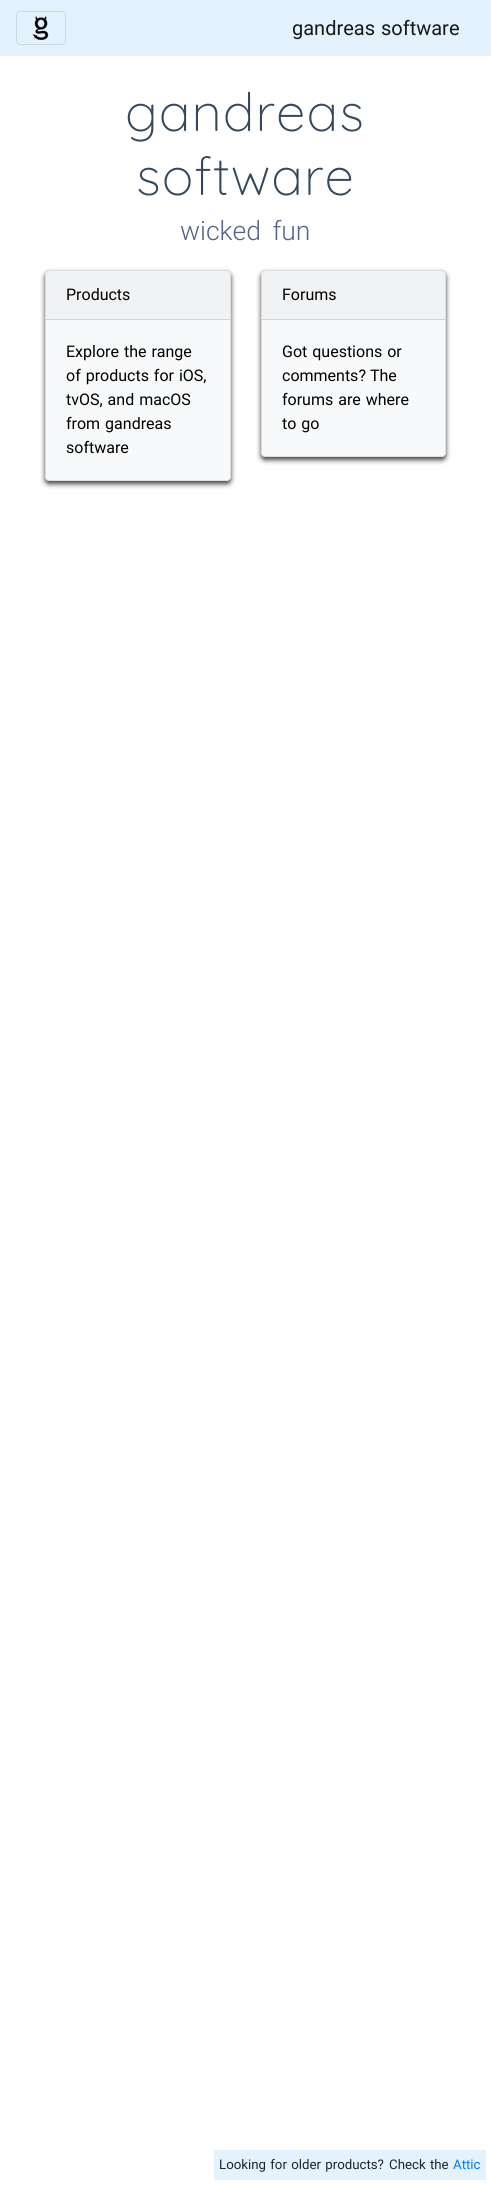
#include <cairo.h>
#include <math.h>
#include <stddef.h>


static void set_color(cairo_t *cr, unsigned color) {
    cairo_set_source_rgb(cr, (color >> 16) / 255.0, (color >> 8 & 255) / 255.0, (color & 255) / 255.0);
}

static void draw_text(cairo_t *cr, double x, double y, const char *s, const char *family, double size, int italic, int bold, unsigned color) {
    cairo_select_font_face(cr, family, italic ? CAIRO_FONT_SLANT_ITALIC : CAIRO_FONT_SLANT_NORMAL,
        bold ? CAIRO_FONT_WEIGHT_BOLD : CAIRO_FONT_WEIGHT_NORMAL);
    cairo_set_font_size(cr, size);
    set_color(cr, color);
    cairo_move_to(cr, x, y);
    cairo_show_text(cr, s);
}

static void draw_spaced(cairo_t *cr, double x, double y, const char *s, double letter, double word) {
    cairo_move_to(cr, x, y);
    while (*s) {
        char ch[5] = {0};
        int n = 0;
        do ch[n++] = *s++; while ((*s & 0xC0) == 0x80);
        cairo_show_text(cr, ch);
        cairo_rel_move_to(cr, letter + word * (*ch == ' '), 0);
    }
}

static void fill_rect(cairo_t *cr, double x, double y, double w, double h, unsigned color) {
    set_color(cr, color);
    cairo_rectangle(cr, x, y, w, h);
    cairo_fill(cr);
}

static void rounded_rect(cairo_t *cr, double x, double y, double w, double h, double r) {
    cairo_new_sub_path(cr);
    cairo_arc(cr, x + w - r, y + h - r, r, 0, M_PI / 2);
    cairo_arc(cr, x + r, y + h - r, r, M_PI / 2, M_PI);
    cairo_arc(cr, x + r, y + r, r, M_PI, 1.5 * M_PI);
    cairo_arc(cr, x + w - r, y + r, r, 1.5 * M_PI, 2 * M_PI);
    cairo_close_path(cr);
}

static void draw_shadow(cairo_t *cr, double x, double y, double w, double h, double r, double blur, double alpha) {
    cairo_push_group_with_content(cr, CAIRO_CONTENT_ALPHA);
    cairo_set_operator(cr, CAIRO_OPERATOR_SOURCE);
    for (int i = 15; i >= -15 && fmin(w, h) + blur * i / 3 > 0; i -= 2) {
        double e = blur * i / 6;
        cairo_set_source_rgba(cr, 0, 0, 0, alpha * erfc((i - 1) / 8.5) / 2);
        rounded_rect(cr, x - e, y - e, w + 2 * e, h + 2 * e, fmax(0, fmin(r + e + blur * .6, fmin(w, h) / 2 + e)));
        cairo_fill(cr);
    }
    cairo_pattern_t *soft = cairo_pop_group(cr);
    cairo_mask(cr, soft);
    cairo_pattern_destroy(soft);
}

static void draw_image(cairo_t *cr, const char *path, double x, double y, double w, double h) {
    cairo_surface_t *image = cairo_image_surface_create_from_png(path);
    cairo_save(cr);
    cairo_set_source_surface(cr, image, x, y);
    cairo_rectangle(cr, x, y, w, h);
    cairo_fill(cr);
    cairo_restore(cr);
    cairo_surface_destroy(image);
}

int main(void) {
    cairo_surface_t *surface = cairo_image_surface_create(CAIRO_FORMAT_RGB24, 491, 2185);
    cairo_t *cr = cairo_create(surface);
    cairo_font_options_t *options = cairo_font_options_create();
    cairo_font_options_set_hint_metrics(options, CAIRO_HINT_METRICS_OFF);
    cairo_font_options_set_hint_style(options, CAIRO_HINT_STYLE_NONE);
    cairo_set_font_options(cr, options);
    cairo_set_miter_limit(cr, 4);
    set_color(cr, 0xFFFFFF);
    cairo_paint(cr);
    fill_rect(cr, 0, 0, 491, 56, 0xE3F2FD);
    rounded_rect(cr, 16.5, 11.5, 49, 33, 3.5);
    set_color(cr, 0xCCDAE4);
    cairo_set_line_width(cr, 1);
    cairo_stroke(cr);
    draw_image(cr, "assets/img1.png", 32, 16, 17, 24);
    cairo_select_font_face(cr, "Roboto", CAIRO_FONT_SLANT_NORMAL, CAIRO_FONT_WEIGHT_NORMAL);
    cairo_set_font_size(cr, 20);
    set_color(cr, 0x171819);
    draw_spaced(cr, 292, 35, "gandreas software", 0, 1);
    cairo_select_font_face(cr, "Quicksand Light", CAIRO_FONT_SLANT_NORMAL, CAIRO_FONT_WEIGHT_NORMAL);
    cairo_set_font_size(cr, 53);
    set_color(cr, 0x35495E);
    draw_spaced(cr, 125, 131, "gandreas", 1, 0);
    draw_spaced(cr, 136, 195, "software", 1, 0);
    cairo_select_font_face(cr, "Roboto Light", CAIRO_FONT_SLANT_NORMAL, CAIRO_FONT_WEIGHT_NORMAL);
    cairo_set_font_size(cr, 26.5);
    set_color(cr, 0x526488);
    draw_spaced(cr, 180, 240, "wicked fun", 0, 5);
    set_color(cr, 0x444444);
    draw_shadow(cr, 45, 273, 186, 211, 4, 2.5, 1);
    set_color(cr, 0xF8F9FA);
    rounded_rect(cr, 45, 270, 186, 211, 4);
    cairo_fill(cr);
    rounded_rect(cr, 45.5, 270.5, 185, 210, 3.5);
    cairo_set_source_rgba(cr, 0, 0, 0, 0.12);
    cairo_stroke(cr);
    cairo_set_source_rgba(cr, 0, 0, 0, 0.03);
    cairo_rectangle(cr, 46, 271, 184, 48);
    cairo_fill(cr);
    fill_rect(cr, 46, 319, 184, 1, 0xD2D3D4);
    draw_text(cr, 66, 300, "Products", "Roboto", 16, 0, 0, 0x000000);
    draw_spaced(cr, 66, 357, "Explore the range", 0, 1);
    draw_spaced(cr, 66, 381, "of products for iOS,", 0, 1);
    draw_spaced(cr, 66, 405, "tvOS, and macOS", 0, 1);
    draw_spaced(cr, 66, 429, "from gandreas", 0, 1);
    draw_text(cr, 66, 453, "software", "Roboto", 16, 0, 0, 0x000000);
    set_color(cr, 0x444444);
    draw_shadow(cr, 261, 273, 185, 187, 4, 2.5, 1);
    set_color(cr, 0xF8F9FA);
    rounded_rect(cr, 261, 270, 185, 187, 4);
    cairo_fill(cr);
    rounded_rect(cr, 261.5, 270.5, 184, 186, 3.5);
    cairo_set_source_rgba(cr, 0, 0, 0, 0.12);
    cairo_stroke(cr);
    cairo_set_source_rgba(cr, 0, 0, 0, 0.03);
    cairo_rectangle(cr, 262, 271, 183, 48);
    cairo_fill(cr);
    fill_rect(cr, 262, 319, 183, 1, 0xD2D3D4);
    draw_text(cr, 282, 300, "Forums", "Roboto", 16, 0, 0, 0x000000);
    draw_spaced(cr, 282, 357, "Got questions or", 0, 1);
    draw_text(cr, 282, 381, "comments?", "Roboto", 16, 0, 0, 0x000000);
    draw_text(cr, 370, 381, "The", "Roboto", 16, 0, 0, 0x000000);
    draw_spaced(cr, 282, 405, "forums are where", 0, 1);
    draw_spaced(cr, 282, 429, "to go", 0, 1);
    fill_rect(cr, 214, 2150, 272, 30, 0xE3F2FD);
    cairo_set_font_size(cr, 13.25);
    set_color(cr, 0x212529);
    draw_spaced(cr, 219, 2169, "Looking for older products?", 0, 1);
    draw_spaced(cr, 389, 2169, "Check the", 0, 1);
    draw_text(cr, 453, 2169, "Attic", "Roboto", 13.25, 0, 0, 0x007BFF);
    cairo_surface_write_to_png(surface, "output.png");
    cairo_font_options_destroy(options);
    cairo_destroy(cr);
    cairo_surface_destroy(surface);
    return 0;
}
